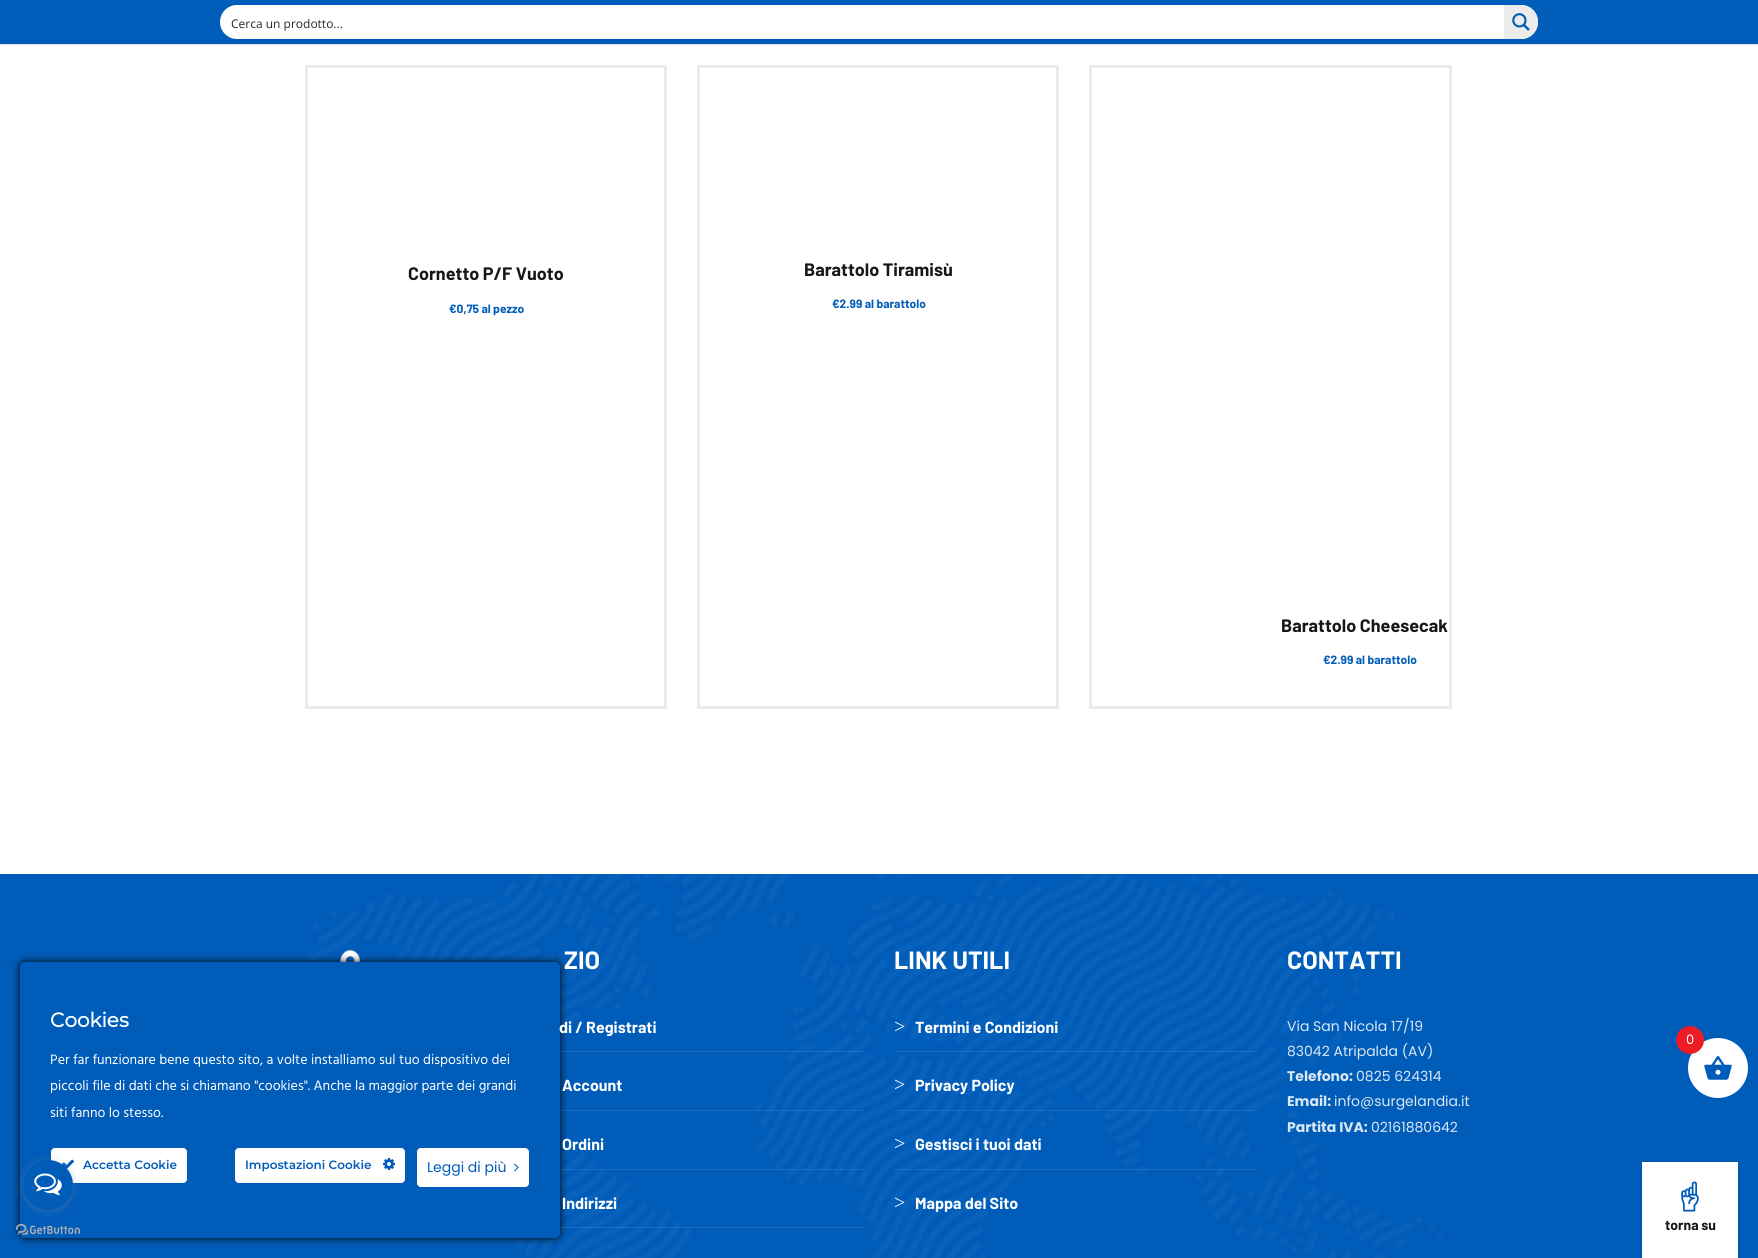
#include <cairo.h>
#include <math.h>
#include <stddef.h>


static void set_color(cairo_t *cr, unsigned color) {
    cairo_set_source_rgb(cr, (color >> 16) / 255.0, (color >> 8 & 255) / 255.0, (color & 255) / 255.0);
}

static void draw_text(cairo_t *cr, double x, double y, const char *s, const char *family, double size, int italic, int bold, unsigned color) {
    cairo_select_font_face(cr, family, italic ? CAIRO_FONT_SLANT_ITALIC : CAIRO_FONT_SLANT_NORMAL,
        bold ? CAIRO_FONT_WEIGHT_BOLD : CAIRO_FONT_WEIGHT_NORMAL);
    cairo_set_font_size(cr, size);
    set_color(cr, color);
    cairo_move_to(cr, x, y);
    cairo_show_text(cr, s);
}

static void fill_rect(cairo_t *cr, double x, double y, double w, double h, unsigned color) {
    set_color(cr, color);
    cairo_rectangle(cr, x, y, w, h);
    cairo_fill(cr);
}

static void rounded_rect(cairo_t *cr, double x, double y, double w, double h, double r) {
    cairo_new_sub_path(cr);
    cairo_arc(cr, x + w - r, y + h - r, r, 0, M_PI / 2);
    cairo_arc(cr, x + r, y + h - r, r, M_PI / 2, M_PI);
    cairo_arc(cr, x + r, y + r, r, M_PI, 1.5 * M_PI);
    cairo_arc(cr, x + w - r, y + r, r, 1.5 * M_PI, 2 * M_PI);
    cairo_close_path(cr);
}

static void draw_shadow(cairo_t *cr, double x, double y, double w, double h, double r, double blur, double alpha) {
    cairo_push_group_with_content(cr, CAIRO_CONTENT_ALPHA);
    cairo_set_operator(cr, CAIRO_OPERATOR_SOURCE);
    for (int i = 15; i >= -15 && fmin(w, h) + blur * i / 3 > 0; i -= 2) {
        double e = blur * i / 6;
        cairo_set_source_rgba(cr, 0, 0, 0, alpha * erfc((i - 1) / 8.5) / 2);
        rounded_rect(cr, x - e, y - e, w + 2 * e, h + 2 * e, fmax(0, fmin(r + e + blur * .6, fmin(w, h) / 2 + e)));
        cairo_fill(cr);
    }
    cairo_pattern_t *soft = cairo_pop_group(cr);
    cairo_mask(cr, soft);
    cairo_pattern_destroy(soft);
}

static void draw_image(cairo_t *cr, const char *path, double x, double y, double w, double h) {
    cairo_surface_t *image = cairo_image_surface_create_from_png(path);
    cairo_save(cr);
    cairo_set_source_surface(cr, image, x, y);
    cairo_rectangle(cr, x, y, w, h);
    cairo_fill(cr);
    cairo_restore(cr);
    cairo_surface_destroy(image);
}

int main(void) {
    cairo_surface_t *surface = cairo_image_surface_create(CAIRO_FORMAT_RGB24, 1758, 1258);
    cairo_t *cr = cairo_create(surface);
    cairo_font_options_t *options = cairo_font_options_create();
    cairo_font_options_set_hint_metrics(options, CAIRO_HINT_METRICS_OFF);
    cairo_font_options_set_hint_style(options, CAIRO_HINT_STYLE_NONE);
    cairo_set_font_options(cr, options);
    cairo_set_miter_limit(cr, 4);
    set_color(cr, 0xFFFFFF);
    cairo_paint(cr);
    fill_rect(cr, 0, 0, 1758, 44, 0x005DB9);
    fill_rect(cr, 0, 44, 1758, 1, 0xDFDFDF);
    set_color(cr, 0xFFFFFF);
    rounded_rect(cr, 220, 5, 1318, 34, 17);
    cairo_fill(cr);
    draw_text(cr, 231, 28, "Cerca un prodotto...", "Open Sans", 12, 0, 0, 0x262626);
    set_color(cr, 0xEBEBEB);
    cairo_new_path(cr);
    cairo_move_to(cr, 1504, 5);
    cairo_line_to(cr, 1521, 5);
    cairo_curve_to(cr, 1530.5, 5, 1538, 12.5, 1538, 22);
    cairo_curve_to(cr, 1538, 31.5, 1530.5, 39, 1521, 39);
    cairo_line_to(cr, 1504, 39);
    cairo_close_path(cr);
    cairo_fill(cr);
    draw_image(cr, "assets/img1.png", 1512, 13, 18, 18);
    cairo_rectangle(cr, 306.5, 66.5, 359, 641);
    cairo_set_line_width(cr, 3);
    cairo_stroke(cr);
    draw_text(cr, 408, 280, "Cornetto P/F Vuoto", "Barlow", 18, 0, 1, 0x191716);
    draw_text(cr, 449, 313, "€0,75 al pezzo", "Barlow", 12, 0, 1, 0x005CB9);
    cairo_rectangle(cr, 698.5, 66.5, 359, 641);
    set_color(cr, 0xEBEBEB);
    cairo_stroke(cr);
    draw_text(cr, 804, 276, "Barattolo Tiramisù", "Barlow", 18, 0, 1, 0x191716);
    draw_text(cr, 832, 308, "€2.99 al barattolo", "Barlow", 12, 0, 1, 0x005CB9);
    cairo_rectangle(cr, 1090.5, 66.5, 360, 641);
    cairo_set_source_rgba(cr, 0, 0, 0, 0.08);
    cairo_stroke(cr);
    draw_text(cr, 1281, 632, "Barattolo Cheesecak", "Barlow", 18, 0, 1, 0x191716);
    draw_text(cr, 1323, 664, "€2.99 al barattolo", "Barlow", 12, 0, 1, 0x005CB9);
    fill_rect(cr, 0, 874, 1758, 384, 0x005CB9);
    draw_image(cr, "assets/img5.png", 307, 874, 1137, 384);
    draw_image(cr, "assets/img6.png", 340, 949, 21, 13);
    cairo_set_source_rgba(cr, 1, 1, 1, 0.1);
    cairo_rectangle(cr, 560, 1051, 304, 1);
    cairo_fill(cr);
    cairo_rectangle(cr, 560, 1110, 304, 1);
    cairo_fill(cr);
    cairo_rectangle(cr, 560, 1169, 304, 1);
    cairo_fill(cr);
    cairo_rectangle(cr, 560, 1227, 304, 1);
    cairo_fill(cr);
    set_color(cr, 0x000000);
    draw_shadow(cr, 20, 962, 540, 276, 5, 4, 1);
    set_color(cr, 0x005CB9);
    rounded_rect(cr, 20, 962, 540, 276, 5);
    cairo_fill(cr);
    draw_text(cr, 50, 1027, "Cookies", "Montserrat", 20, 0, 1, 0xFFFFFF);
    draw_text(cr, 50, 1064, "Per far funzionare bene questo sito, a volte installiamo sul tuo dispositivo dei", "Hind", 14, 0, 0, 0xFFFFFF);
    draw_text(cr, 50, 1090, "piccoli file di dati che si chiamano \"cookies\". Anche la maggior parte dei grandi", "Hind", 14, 0, 0, 0xFFFFFF);
    draw_text(cr, 50, 1117, "siti fanno lo stesso.", "Hind", 14, 0, 0, 0xFFFFFF);
    rounded_rect(cr, 50.5, 1147.5, 137, 36, 4.5);
    cairo_fill_preserve(cr);
    set_color(cr, 0x005CB9);
    cairo_set_line_width(cr, 1);
    cairo_stroke(cr);
    draw_image(cr, "assets/img2.png", 62, 1159, 12, 10);
    draw_text(cr, 83, 1169, "Accetta Cookie", "Montserrat SemiBold", 12, 0, 0, 0x005CB9);
    set_color(cr, 0xFFFFFF);
    rounded_rect(cr, 234.5, 1147.5, 171, 36, 4.5);
    cairo_fill_preserve(cr);
    set_color(cr, 0x005CB9);
    cairo_stroke(cr);
    draw_text(cr, 245, 1169, "Impostazioni Cookie", "Montserrat SemiBold", 12, 0, 0, 0x005CB9);
    draw_image(cr, "assets/img3.png", 383, 1158, 12, 12);
    set_color(cr, 0xFFFFFF);
    rounded_rect(cr, 416.5, 1147.5, 113, 40, 4.5);
    cairo_fill_preserve(cr);
    set_color(cr, 0x005CB9);
    cairo_stroke(cr);
    draw_text(cr, 427, 1172, "Leggi di più", "Poppins", 14, 0, 0, 0x005CB9);
    draw_image(cr, "assets/img4.png", 514, 1163, 5, 9);
    draw_text(cr, 564, 969, "ZIO", "Barlow", 25, 0, 1, 0xFFFFFF);
    draw_text(cr, 559, 1033, "di / Registrati", "Barlow", 16, 0, 1, 0xFFFFFF);
    draw_text(cr, 562, 1091, "Account", "Barlow", 16, 0, 1, 0xFFFFFF);
    draw_text(cr, 562, 1150, "Ordini", "Barlow", 16, 0, 1, 0xFFFFFF);
    draw_text(cr, 562, 1209, "Indirizzi", "Barlow", 16, 0, 1, 0xFFFFFF);
    draw_text(cr, 894, 969, "LINK UTILI", "Barlow", 25, 0, 1, 0xFFFFFF);
    draw_text(cr, 894, 1033, ">", "Liberation Serif", 20, 0, 0, 0xFFFFFF);
    draw_text(cr, 915, 1033, "Termini e Condizioni", "Barlow", 16, 0, 1, 0xFFFFFF);
    cairo_set_source_rgba(cr, 1, 1, 1, 0.1);
    cairo_rectangle(cr, 894, 1051, 363, 1);
    cairo_fill(cr);
    draw_text(cr, 894, 1091, ">", "Liberation Serif", 20, 0, 0, 0xFFFFFF);
    draw_text(cr, 915, 1091, "Privacy Policy", "Barlow", 16, 0, 1, 0xFFFFFF);
    cairo_set_source_rgba(cr, 1, 1, 1, 0.1);
    cairo_rectangle(cr, 894, 1110, 363, 1);
    cairo_fill(cr);
    draw_text(cr, 894, 1150, ">", "Liberation Serif", 20, 0, 0, 0xFFFFFF);
    draw_text(cr, 915, 1150, "Gestisci i tuoi dati", "Barlow", 16, 0, 1, 0xFFFFFF);
    cairo_set_source_rgba(cr, 1, 1, 1, 0.1);
    cairo_rectangle(cr, 894, 1169, 363, 1);
    cairo_fill(cr);
    draw_text(cr, 894, 1209, ">", "Liberation Serif", 20, 0, 0, 0xFFFFFF);
    draw_text(cr, 915, 1209, "Mappa del Sito", "Barlow", 16, 0, 1, 0xFFFFFF);
    draw_text(cr, 1287, 969, "CONTATTI", "Barlow", 25, 0, 1, 0xFFFFFF);
    draw_text(cr, 1287, 1031, "Via San Nicola 17/19", "Poppins", 14, 0, 0, 0xD9E7F5);
    draw_text(cr, 1287, 1056, "83042 Atripalda (AV)", "Poppins", 14, 0, 0, 0xD9E7F5);
    draw_text(cr, 1287, 1081, "Telefono:", "Poppins", 14, 0, 1, 0xD9E7F5);
    draw_text(cr, 1356, 1081, "0825 624314", "Poppins", 14, 0, 0, 0xD9E7F5);
    draw_text(cr, 1287, 1106, "Email:", "Poppins", 14, 0, 1, 0xD9E7F5);
    draw_text(cr, 1334, 1106, "info@surgelandia.it", "Poppins", 14, 0, 0, 0xD9E7F5);
    draw_text(cr, 1287, 1132, "Partita IVA:", "Poppins", 14, 0, 1, 0xD9E7F5);
    draw_text(cr, 1371, 1132, "02161880642", "Poppins", 14, 0, 0, 0xD9E7F5);
    set_color(cr, 0xFFFFFF);
    cairo_new_path(cr);
    cairo_arc(cr, 1718, 1068, 30, 0, 2 * M_PI);
    cairo_fill(cr);
    set_color(cr, 0xEE1C25);
    cairo_arc(cr, 1690, 1040, 14, 0, 2 * M_PI);
    cairo_fill(cr);
    draw_text(cr, 1686, 1044, "0", "Poppins", 13, 0, 0, 0xFFFFFF);
    draw_image(cr, "assets/img7.png", 1704, 1056, 28, 24);
    set_color(cr, 0x888888);
    draw_shadow(cr, 23, 1161, 50, 50, 25, 3.5, 0.4);
    set_color(cr, 0x005CB9);
    cairo_arc(cr, 48, 1185, 25, 0, 2 * M_PI);
    cairo_fill(cr);
    draw_image(cr, "assets/img8.png", 34, 1173, 28, 23);
    draw_image(cr, "assets/img9.png", 16, 1224, 64, 11);
    set_color(cr, 0x000000);
    draw_shadow(cr, 1642, 1162, 96, 96, 0, 1, 0.3);
    fill_rect(cr, 1642, 1162, 96, 96, 0xFFFFFF);
    draw_image(cr, "assets/img10.png", 1681, 1181, 18, 31);
    draw_text(cr, 1665, 1230, "torna su", "Barlow", 14, 0, 1, 0x191716);
    cairo_surface_write_to_png(surface, "output.png");
    cairo_font_options_destroy(options);
    cairo_destroy(cr);
    cairo_surface_destroy(surface);
    return 0;
}
